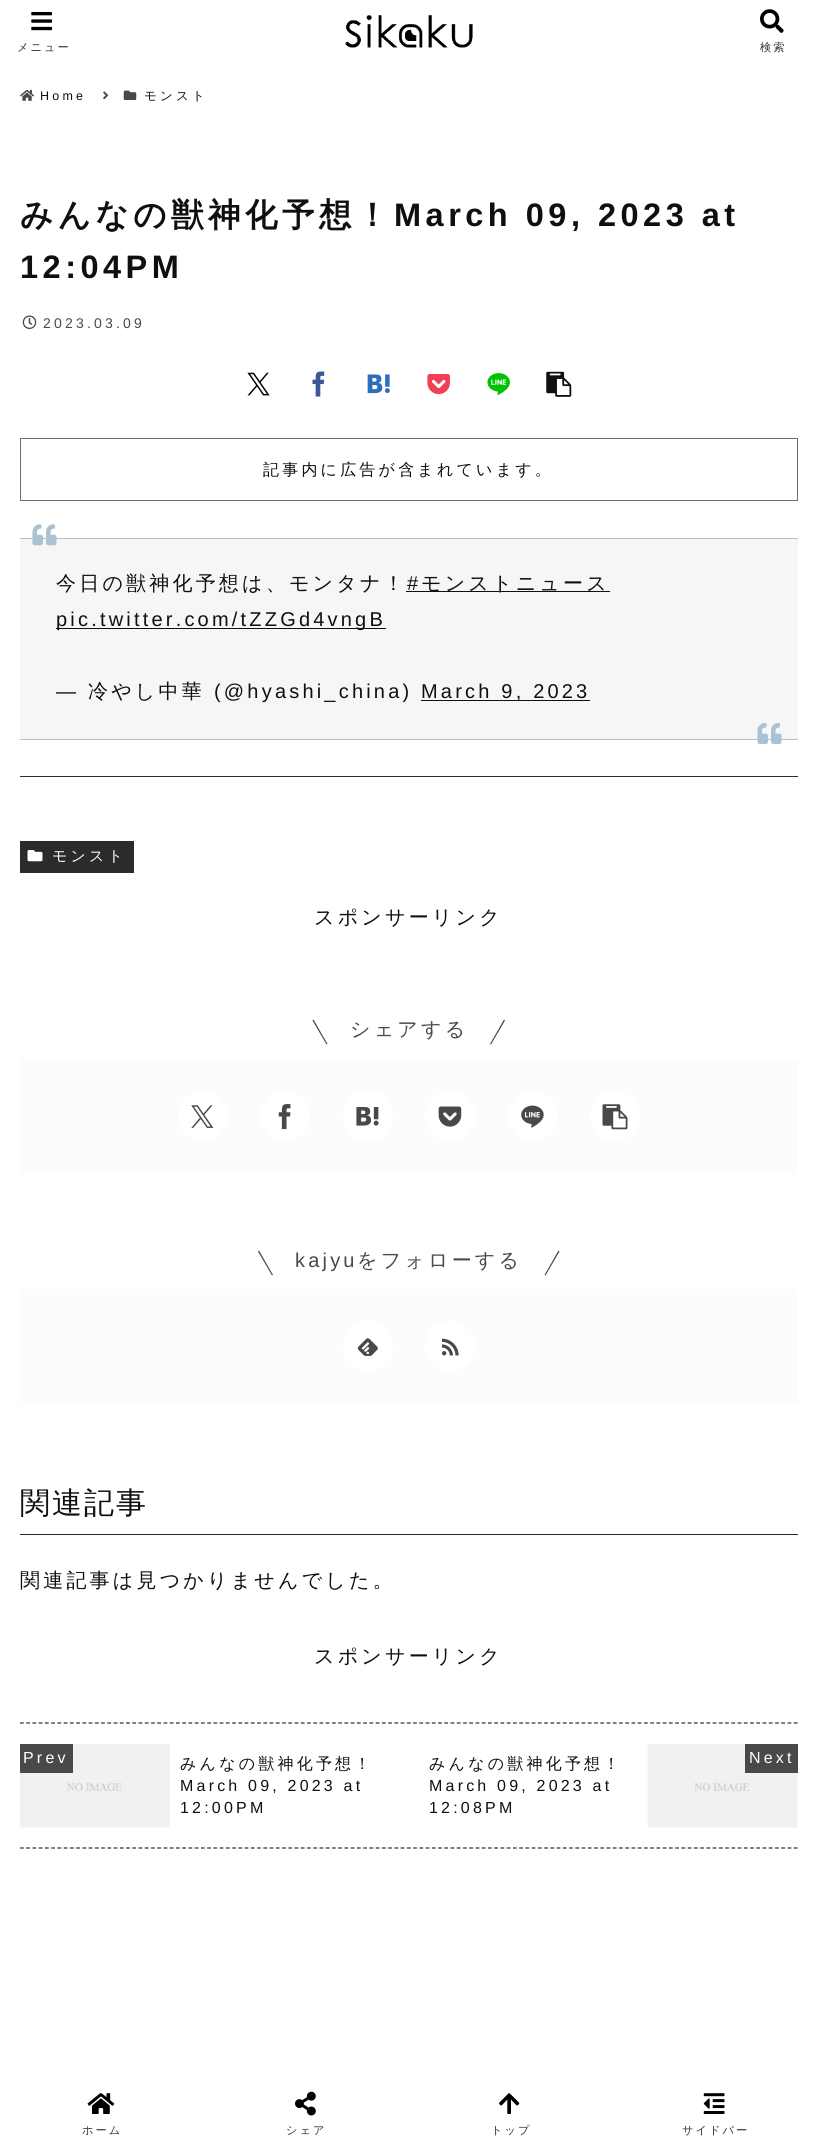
#include <cairo.h>
#include <math.h>
#include <stddef.h>


static void set_color(cairo_t *cr, unsigned color) {
    cairo_set_source_rgb(cr, (color >> 16) / 255.0, (color >> 8 & 255) / 255.0, (color & 255) / 255.0);
}

static void draw_spaced(cairo_t *cr, double x, double y, const char *s, double letter, double word) {
    cairo_move_to(cr, x, y);
    while (*s) {
        char ch[5] = {0};
        int n = 0;
        do ch[n++] = *s++; while ((*s & 0xC0) == 0x80);
        cairo_show_text(cr, ch);
        cairo_rel_move_to(cr, letter + word * (*ch == ' '), 0);
    }
}

static void fill_rect(cairo_t *cr, double x, double y, double w, double h, unsigned color) {
    set_color(cr, color);
    cairo_rectangle(cr, x, y, w, h);
    cairo_fill(cr);
}

static void draw_image(cairo_t *cr, const char *path, double x, double y, double w, double h) {
    cairo_surface_t *image = cairo_image_surface_create_from_png(path);
    cairo_save(cr);
    cairo_set_source_surface(cr, image, x, y);
    cairo_rectangle(cr, x, y, w, h);
    cairo_fill(cr);
    cairo_restore(cr);
    cairo_surface_destroy(image);
}

int main(void) {
    cairo_surface_t *surface = cairo_image_surface_create(CAIRO_FORMAT_RGB24, 817, 2145);
    cairo_t *cr = cairo_create(surface);
    cairo_font_options_t *options = cairo_font_options_create();
    cairo_font_options_set_hint_metrics(options, CAIRO_HINT_METRICS_OFF);
    cairo_font_options_set_hint_style(options, CAIRO_HINT_STYLE_NONE);
    cairo_set_font_options(cr, options);
    cairo_set_miter_limit(cr, 4);
    set_color(cr, 0xFFFFFF);
    cairo_paint(cr);
    draw_image(cr, "assets/img1.png", 31, 12, 22, 19);
    cairo_select_font_face(cr, "WenQuanYi Zen Hei Medium", CAIRO_FONT_SLANT_NORMAL, CAIRO_FONT_WEIGHT_NORMAL);
    cairo_set_font_size(cr, 11.25);
    set_color(cr, 0x333333);
    draw_spaced(cr, 17, 51, "メニュー", 2, 0);
    draw_image(cr, "assets/img2.png", 345, 15, 128, 33);
    draw_image(cr, "assets/img3.png", 760, 9, 24, 24);
    draw_spaced(cr, 760, 51, "検索", 2, 0);
    draw_image(cr, "assets/img4.png", 20, 89, 14, 12);
    cairo_select_font_face(cr, "Liberation Sans", CAIRO_FONT_SLANT_NORMAL, CAIRO_FONT_WEIGHT_NORMAL);
    cairo_set_font_size(cr, 12.5);
    set_color(cr, 0x0F0F0F);
    draw_spaced(cr, 40, 100, "Home", 3.2, 0);
    draw_image(cr, "assets/img5.png", 103, 91, 6, 9);
    draw_image(cr, "assets/img6.png", 123, 90, 14, 10);
    cairo_select_font_face(cr, "WenQuanYi Zen Hei Medium", CAIRO_FONT_SLANT_NORMAL, CAIRO_FONT_WEIGHT_NORMAL);
    draw_spaced(cr, 144, 100, "モンスト", 3.2, 0);
    cairo_select_font_face(cr, "WenQuanYi Zen Hei", CAIRO_FONT_SLANT_NORMAL, CAIRO_FONT_WEIGHT_BOLD);
    cairo_set_font_size(cr, 32.5);
    draw_spaced(cr, 20, 226, "みんなの獣神化予想！", 4.5, 0);
    cairo_select_font_face(cr, "Liberation Sans", CAIRO_FONT_SLANT_NORMAL, CAIRO_FONT_WEIGHT_BOLD);
    draw_spaced(cr, 394, 226, "March 09, 2023 at", 4.5, 0);
    draw_spaced(cr, 20, 278, "12:04PM", 4.5, 0);
    draw_image(cr, "assets/img7.png", 22, 315, 15, 14);
    cairo_select_font_face(cr, "Liberation Sans", CAIRO_FONT_SLANT_NORMAL, CAIRO_FONT_WEIGHT_NORMAL);
    cairo_set_font_size(cr, 14);
    set_color(cr, 0x494949);
    draw_spaced(cr, 43, 328, "2023.03.09", 3.2, 0);
    draw_image(cr, "assets/img8.png", 247, 372, 23, 24);
    draw_image(cr, "assets/img9.png", 312, 371, 13, 26);
    draw_image(cr, "assets/img10.png", 367, 374, 23, 20);
    draw_image(cr, "assets/img11.png", 427, 374, 23, 21);
    draw_image(cr, "assets/img12.png", 487, 373, 23, 23);
    draw_image(cr, "assets/img13.png", 546, 371, 26, 26);
    cairo_rectangle(cr, 20.5, 438.5, 777, 62);
    set_color(cr, 0x707070);
    cairo_set_line_width(cr, 1);
    cairo_stroke(cr);
    cairo_select_font_face(cr, "WenQuanYi Zen Hei Medium", CAIRO_FONT_SLANT_NORMAL, CAIRO_FONT_WEIGHT_NORMAL);
    cairo_set_font_size(cr, 16);
    set_color(cr, 0x0F0F0F);
    draw_spaced(cr, 263, 475, "記事内に広告が含まれています。", 3.2, 0);
    fill_rect(cr, 20, 776, 778, 1, 0x2B2B2B);
    fill_rect(cr, 20, 539, 778, 200, 0xF6F6F6);
    fill_rect(cr, 20, 538, 778, 1, 0xAAC2D2);
    fill_rect(cr, 20, 739, 778, 1, 0xAAC2D2);
    draw_image(cr, "assets/img14.png", 32, 524, 25, 22);
    cairo_set_font_size(cr, 20);
    set_color(cr, 0x0F0F0F);
    draw_spaced(cr, 56, 590, "今日の獣神化予想は、モンタナ！", 3.2, 0);
    cairo_select_font_face(cr, "Liberation Sans", CAIRO_FONT_SLANT_NORMAL, CAIRO_FONT_WEIGHT_NORMAL);
    draw_spaced(cr, 407, 590, "#", 3.2, 0);
    fill_rect(cr, 406, 591, 204, 1, 0x0F0F0F);
    cairo_select_font_face(cr, "WenQuanYi Zen Hei Medium", CAIRO_FONT_SLANT_NORMAL, CAIRO_FONT_WEIGHT_NORMAL);
    draw_spaced(cr, 421, 590, "モンストニュース", 3.2, 0);
    fill_rect(cr, 56, 628, 330, 1, 0x0F0F0F);
    cairo_select_font_face(cr, "Liberation Sans", CAIRO_FONT_SLANT_NORMAL, CAIRO_FONT_WEIGHT_NORMAL);
    draw_spaced(cr, 56, 626, "pic.twitter.com/tZZGd4vngB", 3.2, 0);
    draw_spaced(cr, 56, 698, "—", 3.2, 0);
    cairo_select_font_face(cr, "WenQuanYi Zen Hei Medium", CAIRO_FONT_SLANT_NORMAL, CAIRO_FONT_WEIGHT_NORMAL);
    draw_spaced(cr, 88, 698, "冷やし中華", 3.2, 0);
    cairo_select_font_face(cr, "Liberation Sans", CAIRO_FONT_SLANT_NORMAL, CAIRO_FONT_WEIGHT_NORMAL);
    draw_spaced(cr, 214, 698, "(@hyashi_china)", 3.2, 0);
    fill_rect(cr, 421, 700, 169, 1, 0x0F0F0F);
    draw_spaced(cr, 421, 698, "March 9, 2023", 3.2, 0);
    draw_image(cr, "assets/img15.png", 757, 723, 25, 21);
    fill_rect(cr, 20, 841, 114, 32, 0x2B2B2B);
    draw_image(cr, "assets/img16.png", 27, 850, 16, 12);
    cairo_select_font_face(cr, "WenQuanYi Zen Hei Medium", CAIRO_FONT_SLANT_NORMAL, CAIRO_FONT_WEIGHT_NORMAL);
    cairo_set_font_size(cr, 15);
    set_color(cr, 0xFFFFFF);
    draw_spaced(cr, 52, 861, "モンスト", 3.2, 0);
    cairo_set_font_size(cr, 20);
    set_color(cr, 0x0F0F0F);
    draw_spaced(cr, 314, 924, "スポンサーリンク", 3.2, 0);
    set_color(cr, 0x494949);
    cairo_new_path(cr);
    cairo_move_to(cr, 312.5, 1020.5);
    cairo_line_to(cr, 313.5, 1019.5);
    cairo_line_to(cr, 327.5, 1044);
    cairo_line_to(cr, 326.5, 1044.5);
    cairo_close_path(cr);
    cairo_fill(cr);
    draw_spaced(cr, 350, 1036, "シェアする", 3.2, 0);
    cairo_new_path(cr);
    cairo_move_to(cr, 504, 1019.5);
    cairo_line_to(cr, 505, 1020.5);
    cairo_line_to(cr, 491, 1044.5);
    cairo_line_to(cr, 490, 1044);
    cairo_close_path(cr);
    cairo_fill(cr);
    fill_rect(cr, 20, 1059, 778, 115, 0xFBFCFD);
    set_color(cr, 0xFFFFFF);
    cairo_arc(cr, 203, 1116, 25, 0, 2 * M_PI);
    cairo_fill(cr);
    draw_image(cr, "assets/img17.png", 191, 1105, 23, 23);
    cairo_arc(cr, 285, 1116, 25, 0, 2 * M_PI);
    cairo_fill(cr);
    draw_image(cr, "assets/img18.png", 278, 1104, 13, 26);
    cairo_arc(cr, 368, 1116, 25, 0, 2 * M_PI);
    cairo_fill(cr);
    draw_image(cr, "assets/img19.png", 356, 1107, 23, 19);
    cairo_arc(cr, 450, 1116, 25, 0, 2 * M_PI);
    cairo_fill(cr);
    draw_image(cr, "assets/img20.png", 438, 1106, 24, 21);
    cairo_arc(cr, 533, 1116, 25, 0, 2 * M_PI);
    cairo_fill(cr);
    draw_image(cr, "assets/img21.png", 521, 1105, 23, 23);
    cairo_arc(cr, 615, 1116, 25, 0, 2 * M_PI);
    cairo_fill(cr);
    draw_image(cr, "assets/img22.png", 602, 1104, 26, 26);
    set_color(cr, 0x494949);
    cairo_new_path(cr);
    cairo_move_to(cr, 258, 1251.5);
    cairo_line_to(cr, 259, 1250.5);
    cairo_line_to(cr, 273, 1275);
    cairo_line_to(cr, 272, 1275.5);
    cairo_close_path(cr);
    cairo_fill(cr);
    cairo_select_font_face(cr, "Liberation Sans", CAIRO_FONT_SLANT_NORMAL, CAIRO_FONT_WEIGHT_NORMAL);
    draw_spaced(cr, 295, 1267, "kajyu", 3.2, 0);
    cairo_select_font_face(cr, "WenQuanYi Zen Hei Medium", CAIRO_FONT_SLANT_NORMAL, CAIRO_FONT_WEIGHT_NORMAL);
    draw_spaced(cr, 357, 1267, "をフォローする", 3.2, 0);
    cairo_new_path(cr);
    cairo_move_to(cr, 558.5, 1250.5);
    cairo_line_to(cr, 559.5, 1251.5);
    cairo_line_to(cr, 545.5, 1275.5);
    cairo_line_to(cr, 544.5, 1275);
    cairo_close_path(cr);
    cairo_fill(cr);
    fill_rect(cr, 20, 1289, 778, 115, 0xFBFCFD);
    set_color(cr, 0xFFFFFF);
    cairo_arc(cr, 368, 1346, 25, 0, 2 * M_PI);
    cairo_fill(cr);
    draw_image(cr, "assets/img23.png", 357, 1338, 21, 18);
    cairo_arc(cr, 450, 1346, 25, 0, 2 * M_PI);
    cairo_fill(cr);
    draw_image(cr, "assets/img24.png", 441, 1338, 18, 18);
    fill_rect(cr, 20, 1534, 778, 1, 0x2B2B2B);
    cairo_set_font_size(cr, 30);
    set_color(cr, 0x0F0F0F);
    draw_spaced(cr, 20, 1513, "関連記事", 2, 0);
    cairo_set_font_size(cr, 20);
    draw_spaced(cr, 20, 1587, "関連記事は見つかりませんでした。", 3.2, 0);
    draw_spaced(cr, 314, 1663, "スポンサーリンク", 3.2, 0);
    cairo_new_path(cr);
    cairo_move_to(cr, 20, 1723);
    cairo_line_to(cr, 797.5, 1723);
    set_color(cr, 0x2B2B2B);
    cairo_set_line_width(cr, 1.2);
    cairo_set_dash(cr, (double[]){3.75, 2.49}, 2, 0);
    cairo_stroke(cr);
    cairo_new_path(cr);
    cairo_move_to(cr, 20, 1848);
    cairo_line_to(cr, 797.5, 1848);
    cairo_stroke(cr);
    draw_image(cr, "assets/img25.png", 20, 1744, 150, 84);
    fill_rect(cr, 20, 1744, 53, 29, 0x494949);
    cairo_select_font_face(cr, "Liberation Sans", CAIRO_FONT_SLANT_NORMAL, CAIRO_FONT_WEIGHT_NORMAL);
    cairo_set_font_size(cr, 16);
    set_color(cr, 0xFFFFFF);
    draw_spaced(cr, 23, 1763, "Prev", 3.2, 0);
    cairo_select_font_face(cr, "WenQuanYi Zen Hei Medium", CAIRO_FONT_SLANT_NORMAL, CAIRO_FONT_WEIGHT_NORMAL);
    set_color(cr, 0x0F0F0F);
    draw_spaced(cr, 180, 1769, "みんなの獣神化予想！", 3.2, 0);
    cairo_select_font_face(cr, "Liberation Sans", CAIRO_FONT_SLANT_NORMAL, CAIRO_FONT_WEIGHT_NORMAL);
    draw_spaced(cr, 180, 1791, "March 09, 2023 at", 3.2, 0);
    draw_spaced(cr, 180, 1813, "12:00PM", 3.2, 0);
    cairo_select_font_face(cr, "WenQuanYi Zen Hei Medium", CAIRO_FONT_SLANT_NORMAL, CAIRO_FONT_WEIGHT_NORMAL);
    draw_spaced(cr, 429, 1769, "みんなの獣神化予想！", 3.2, 0);
    cairo_select_font_face(cr, "Liberation Sans", CAIRO_FONT_SLANT_NORMAL, CAIRO_FONT_WEIGHT_NORMAL);
    draw_spaced(cr, 429, 1791, "March 09, 2023 at", 3.2, 0);
    draw_spaced(cr, 429, 1813, "12:08PM", 3.2, 0);
    draw_image(cr, "assets/img26.png", 647, 1744, 151, 84);
    fill_rect(cr, 745, 1744, 53, 29, 0x494949);
    set_color(cr, 0xFFFFFF);
    draw_spaced(cr, 749, 1763, "Next", 3.2, 0);
    draw_image(cr, "assets/img27.png", 87, 2093, 28, 21);
    cairo_select_font_face(cr, "WenQuanYi Zen Hei Medium", CAIRO_FONT_SLANT_NORMAL, CAIRO_FONT_WEIGHT_NORMAL);
    cairo_set_font_size(cr, 11.25);
    set_color(cr, 0x333333);
    draw_spaced(cr, 82, 2134, "ホーム", 2, 0);
    draw_image(cr, "assets/img28.png", 295, 2091, 21, 25);
    draw_spaced(cr, 286, 2134, "シェア", 2, 0);
    draw_image(cr, "assets/img29.png", 499, 2093, 21, 21);
    draw_spaced(cr, 491, 2134, "トップ", 2, 0);
    draw_image(cr, "assets/img30.png", 703, 2093, 22, 21);
    draw_spaced(cr, 682, 2134, "サイドバー", 2, 0);
    cairo_surface_write_to_png(surface, "output.png");
    cairo_font_options_destroy(options);
    cairo_destroy(cr);
    cairo_surface_destroy(surface);
    return 0;
}
